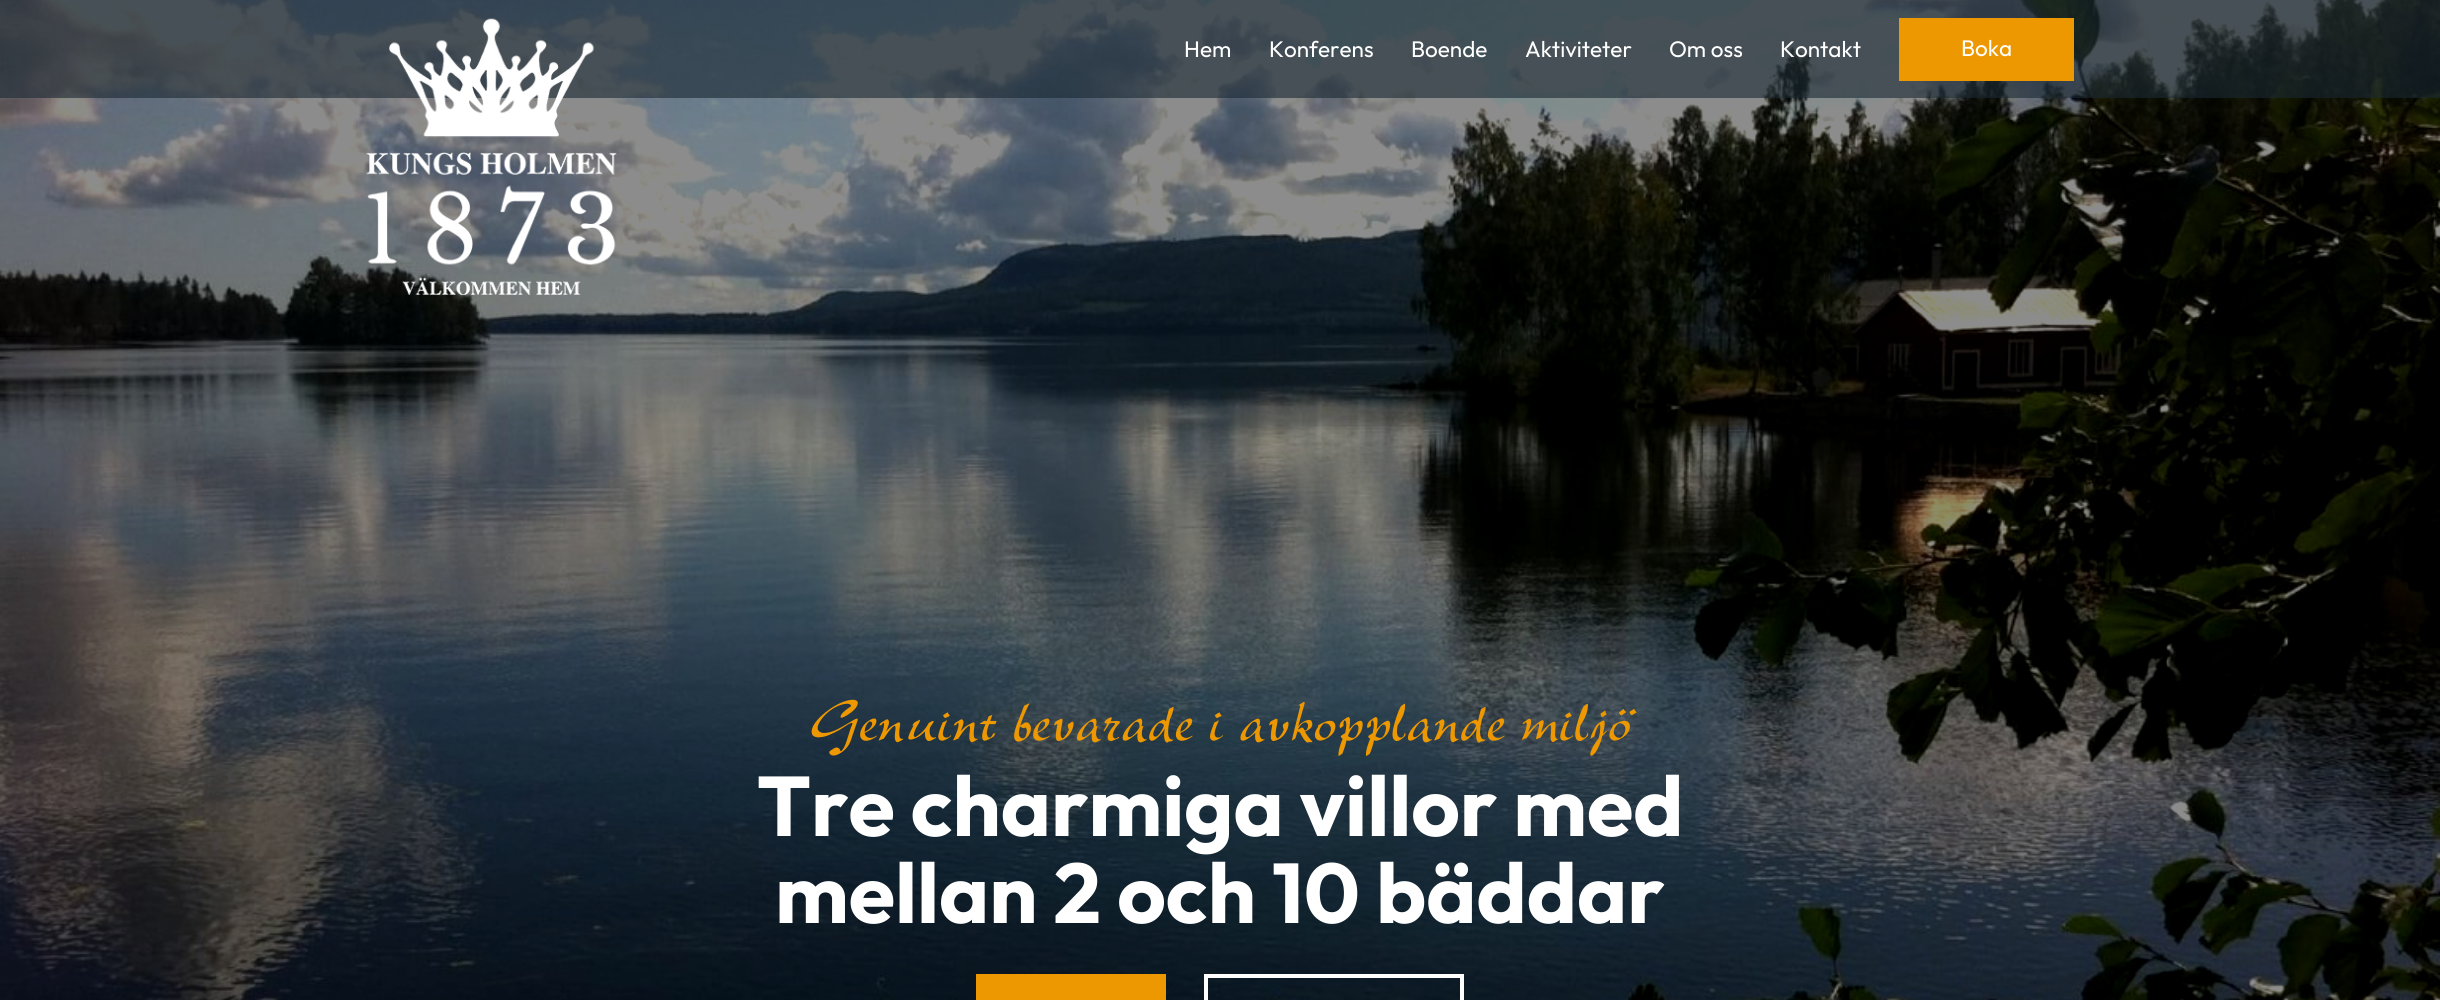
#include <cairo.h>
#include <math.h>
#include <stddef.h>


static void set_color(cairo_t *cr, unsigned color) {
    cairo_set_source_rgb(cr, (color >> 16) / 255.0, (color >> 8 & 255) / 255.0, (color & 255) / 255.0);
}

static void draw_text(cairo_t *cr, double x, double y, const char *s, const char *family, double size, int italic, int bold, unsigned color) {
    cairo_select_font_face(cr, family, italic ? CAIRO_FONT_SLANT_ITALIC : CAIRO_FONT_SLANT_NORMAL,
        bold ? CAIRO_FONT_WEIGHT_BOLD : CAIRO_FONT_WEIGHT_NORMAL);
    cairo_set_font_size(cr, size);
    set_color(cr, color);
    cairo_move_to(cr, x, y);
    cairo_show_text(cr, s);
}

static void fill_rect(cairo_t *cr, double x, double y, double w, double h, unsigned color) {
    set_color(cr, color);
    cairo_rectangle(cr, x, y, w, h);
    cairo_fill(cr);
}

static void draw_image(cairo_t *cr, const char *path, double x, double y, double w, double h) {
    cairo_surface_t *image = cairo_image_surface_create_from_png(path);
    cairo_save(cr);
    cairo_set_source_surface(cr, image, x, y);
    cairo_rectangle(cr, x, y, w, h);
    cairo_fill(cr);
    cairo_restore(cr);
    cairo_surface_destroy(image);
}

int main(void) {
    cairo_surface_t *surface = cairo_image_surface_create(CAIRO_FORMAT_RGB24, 2440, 1000);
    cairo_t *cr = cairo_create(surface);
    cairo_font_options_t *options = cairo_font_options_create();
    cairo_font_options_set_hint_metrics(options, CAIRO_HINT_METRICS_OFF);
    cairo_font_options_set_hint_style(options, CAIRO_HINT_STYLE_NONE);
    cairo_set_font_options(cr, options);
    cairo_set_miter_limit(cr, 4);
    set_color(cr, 0xFFFFFF);
    cairo_paint(cr);
    draw_image(cr, "assets/img2.png", 0, 0, 2440, 1000);
    cairo_set_source_rgba(cr, 0.102, 0.157, 0.196, 0.6);
    cairo_rectangle(cr, 0, 0, 2440, 98);
    cairo_fill(cr);
    draw_image(cr, "assets/img1.png", 366, 18, 251, 277);
    draw_text(cr, 1184, 57, "Hem", "Outfit", 22.5, 0, 0, 0xFFFFFF);
    draw_text(cr, 1269, 57, "Konferens", "Outfit", 22.5, 0, 0, 0xFFFFFF);
    draw_text(cr, 1411, 57, "Boende", "Outfit", 22.5, 0, 0, 0xFFFFFF);
    draw_text(cr, 1525, 57, "Aktiviteter", "Outfit", 22.5, 0, 0, 0xFFFFFF);
    draw_text(cr, 1669, 57, "Om oss", "Outfit", 22.5, 0, 0, 0xFFFFFF);
    draw_text(cr, 1780, 57, "Kontakt", "Outfit", 22.5, 0, 0, 0xFFFFFF);
    fill_rect(cr, 1899, 18, 175, 63, 0xED9800);
    draw_text(cr, 1961, 56, "Boka", "Outfit", 22.5, 0, 0, 0xFFFFFF);
    draw_text(cr, 809, 741, "Genuint bevarade i avkopplande miljö", "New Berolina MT", 62.5, 0, 0, 0xED9800);
    draw_text(cr, 757, 836, "Tre charmiga villor med", "Outfit", 84.4, 0, 1, 0xFFFFFF);
    draw_text(cr, 775, 923, "mellan 2 och 10 bäddar", "Outfit", 84.4, 0, 1, 0xFFFFFF);
    fill_rect(cr, 976, 974, 190, 26, 0xED9800);
    cairo_rectangle(cr, 1206, 976, 256, 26);
    set_color(cr, 0xFFFFFF);
    cairo_set_line_width(cr, 4);
    cairo_stroke(cr);
    cairo_surface_write_to_png(surface, "output.png");
    cairo_font_options_destroy(options);
    cairo_destroy(cr);
    cairo_surface_destroy(surface);
    return 0;
}
